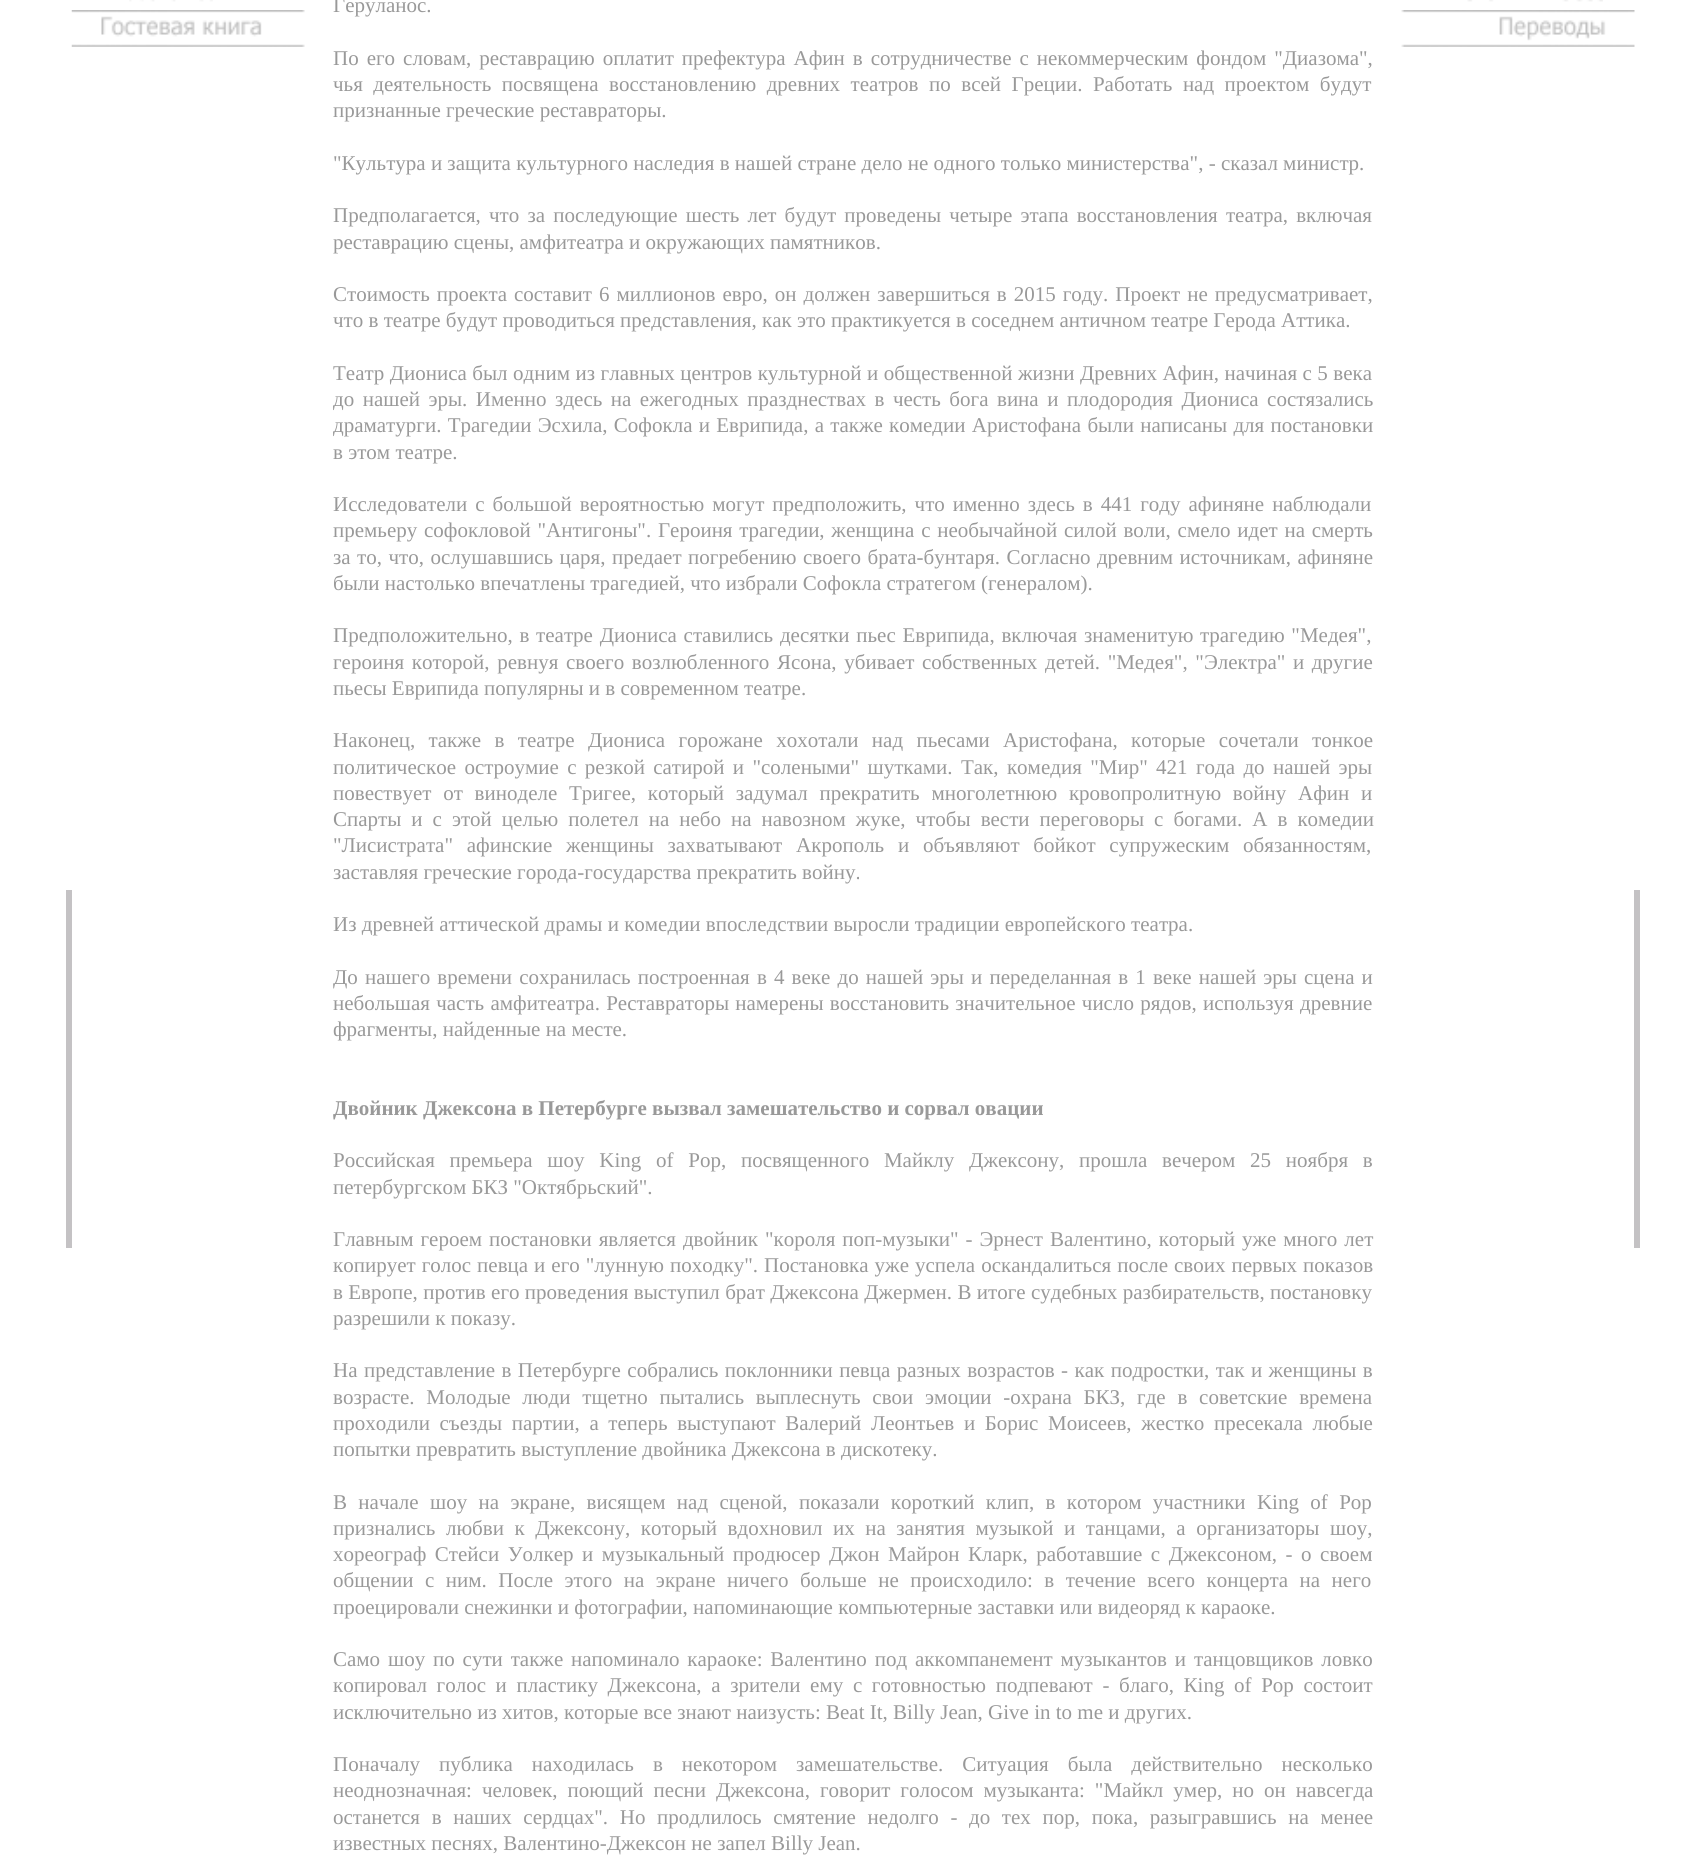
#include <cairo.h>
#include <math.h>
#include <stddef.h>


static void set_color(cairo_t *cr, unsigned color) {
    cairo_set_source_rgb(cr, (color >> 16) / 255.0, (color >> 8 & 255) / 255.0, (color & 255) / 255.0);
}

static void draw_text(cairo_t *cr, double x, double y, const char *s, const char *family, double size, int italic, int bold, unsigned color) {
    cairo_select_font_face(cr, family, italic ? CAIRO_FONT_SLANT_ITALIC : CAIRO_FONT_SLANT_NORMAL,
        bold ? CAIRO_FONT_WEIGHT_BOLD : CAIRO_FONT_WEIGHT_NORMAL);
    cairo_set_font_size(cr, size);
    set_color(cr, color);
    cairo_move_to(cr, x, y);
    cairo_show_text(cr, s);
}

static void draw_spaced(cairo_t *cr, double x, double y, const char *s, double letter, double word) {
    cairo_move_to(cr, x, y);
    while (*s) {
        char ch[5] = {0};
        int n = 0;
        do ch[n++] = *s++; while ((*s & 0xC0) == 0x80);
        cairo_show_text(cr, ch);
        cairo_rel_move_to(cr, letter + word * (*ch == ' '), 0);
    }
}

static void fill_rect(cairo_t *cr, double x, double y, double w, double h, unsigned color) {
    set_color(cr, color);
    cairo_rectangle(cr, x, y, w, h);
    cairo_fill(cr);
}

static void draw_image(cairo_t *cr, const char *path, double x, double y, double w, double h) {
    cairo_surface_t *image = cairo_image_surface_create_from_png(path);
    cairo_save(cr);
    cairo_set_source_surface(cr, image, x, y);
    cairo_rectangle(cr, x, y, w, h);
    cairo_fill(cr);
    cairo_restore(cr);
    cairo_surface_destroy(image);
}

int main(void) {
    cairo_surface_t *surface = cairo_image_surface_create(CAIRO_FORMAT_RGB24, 1706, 1873);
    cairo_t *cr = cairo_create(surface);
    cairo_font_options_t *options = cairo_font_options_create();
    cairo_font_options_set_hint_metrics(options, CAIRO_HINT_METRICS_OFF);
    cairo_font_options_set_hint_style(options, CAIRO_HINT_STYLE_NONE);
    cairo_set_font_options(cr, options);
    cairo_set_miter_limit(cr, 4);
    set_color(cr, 0xFFFFFF);
    cairo_paint(cr);
    draw_image(cr, "assets/img1.png", 129, 0, 84, 2);
    draw_image(cr, "assets/img2.png", 71, 10, 234, 37);
    draw_text(cr, 333, 12, "Геруланос.", "Liberation Serif", 21, 0, 0, 0x999999);
    draw_spaced(cr, 333, 65, "По его словам, реставрацию оплатит префектура Афин в сотрудничестве с некоммерческим фондом \"Диазома\",", 0, 2.75);
    draw_spaced(cr, 333, 91, "чья деятельность посвящена восстановлению древних театров по всей Греции. Работать над проектом будут", 0, 5.25);
    draw_text(cr, 333, 117, "признанные греческие реставраторы.", "Liberation Serif", 21, 0, 0, 0x999999);
    draw_text(cr, 333, 170, "\"Культура и защита культурного наследия в нашей стране дело не одного только министерства\", - сказал министр.", "Liberation Serif", 21, 0, 0, 0x999999);
    draw_spaced(cr, 333, 222, "Предполагается, что за последующие шесть лет будут проведены четыре этапа восстановления театра, включая", 0, 2.9);
    draw_text(cr, 333, 249, "реставрацию сцены, амфитеатра и окружающих памятников.", "Liberation Serif", 21, 0, 0, 0x999999);
    draw_spaced(cr, 333, 301, "Стоимость проекта составит 6 миллионов евро, он должен завершиться в 2015 году. Проект не предусматривает,", 0, 1.75);
    draw_text(cr, 333, 327, "что в театре будут проводиться представления, как это практикуется в соседнем античном театре Герода Аттика.", "Liberation Serif", 21, 0, 0, 0x999999);
    draw_spaced(cr, 333, 380, "Театр Диониса был одним из главных центров культурной и общественной жизни Древних Афин, начиная с 5 века", 0, 0.25);
    draw_spaced(cr, 333, 406, "до нашей эры. Именно здесь на ежегодных празднествах в честь бога вина и плодородия Диониса состязались", 0, 3.25);
    draw_spaced(cr, 333, 432, "драматурги. Трагедии Эсхила, Софокла и Еврипида, а также комедии Аристофана были написаны для постановки", 0, 1);
    draw_text(cr, 333, 459, "в этом театре.", "Liberation Serif", 21, 0, 0, 0x999999);
    draw_spaced(cr, 333, 511, "Исследователи с большой вероятностью могут предположить, что именно здесь в 441 году афиняне наблюдали", 0, 2.75);
    draw_spaced(cr, 333, 537, "премьеру софокловой \"Антигоны\". Героиня трагедии, женщина с необычайной силой воли, смело идет на смерть", 0, 1.5);
    draw_spaced(cr, 333, 564, "за то, что, ослушавшись царя, предает погребению своего брата-бунтаря. Согласно древним источникам, афиняне", 0, 1.25);
    draw_text(cr, 333, 590, "были настолько впечатлены трагедией, что избрали Софокла стратегом (генералом).", "Liberation Serif", 21, 0, 0, 0x999999);
    draw_spaced(cr, 333, 642, "Предположительно, в театре Диониса ставились десятки пьес Еврипида, включая знаменитую трагедию \"Медея\",", 0, 1.5);
    draw_spaced(cr, 333, 669, "героиня которой, ревнуя своего возлюбленного Ясона, убивает собственных детей. \"Медея\", \"Электра\" и другие", 0, 2.4);
    draw_text(cr, 333, 695, "пьесы Еврипида популярны и в современном театре.", "Liberation Serif", 21, 0, 0, 0x999999);
    draw_spaced(cr, 333, 747, "Наконец, также в театре Диониса горожане хохотали над пьесами Аристофана, которые сочетали тонкое", 0, 8.1);
    draw_spaced(cr, 333, 774, "политическое остроумие с резкой сатирой и \"солеными\" шутками. Так, комедия \"Мир\" 421 года до нашей эры", 0, 3.1);
    draw_spaced(cr, 333, 800, "повествует от виноделе Тригее, который задумал прекратить многолетнюю кровопролитную войну Афин и", 0, 6.5);
    draw_spaced(cr, 333, 826, "Спарты и с этой целью полетел на небо на навозном жуке, чтобы вести переговоры с богами. А в комедии", 0, 4.75);
    draw_spaced(cr, 333, 852, "\"Лисистрата\" афинские женщины захватывают Акрополь и объявляют бойкот супружеским обязанностям,", 0, 8.5);
    draw_text(cr, 333, 879, "заставляя греческие города-государства прекратить войну.", "Liberation Serif", 21, 0, 0, 0x999999);
    draw_text(cr, 333, 931, "Из древней аттической драмы и комедии впоследствии выросли традиции европейского театра.", "Liberation Serif", 21, 0, 0, 0x999999);
    draw_spaced(cr, 333, 984, "До нашего времени сохранилась построенная в 4 веке до нашей эры и переделанная в 1 веке нашей эры сцена и", 0, 1.9);
    draw_spaced(cr, 333, 1010, "небольшая часть амфитеатра. Реставраторы намерены восстановить значительное число рядов, используя древние", 0, 1);
    draw_text(cr, 333, 1036, "фрагменты, найденные на месте.", "Liberation Serif", 21, 0, 0, 0x999999);
    draw_text(cr, 333, 1115, "Двойник Джексона в Петербурге вызвал замешательство и сорвал овации", "Liberation Serif", 21, 0, 1, 0x999999);
    cairo_select_font_face(cr, "Liberation Serif", CAIRO_FONT_SLANT_NORMAL, CAIRO_FONT_WEIGHT_NORMAL);
    draw_spaced(cr, 333, 1167, "Российская премьера шоу King of Pop, посвященного Майклу Джексону, прошла вечером 25 ноября в", 0, 9.5);
    draw_text(cr, 333, 1194, "петербургском БКЗ \"Октябрьский\".", "Liberation Serif", 21, 0, 0, 0x999999);
    draw_spaced(cr, 333, 1246, "Главным героем постановки является двойник \"короля поп-музыки\" - Эрнест Валентино, который уже много лет", 0, 1.75);
    draw_spaced(cr, 333, 1272, "копирует голос певца и его \"лунную походку\". Постановка уже успела оскандалиться после своих первых показов", 0, 0.75);
    draw_spaced(cr, 333, 1299, "в Европе, против его проведения выступил брат Джексона Джермен. В итоге судебных разбирательств, постановку", 0, 0.1);
    draw_text(cr, 333, 1325, "разрешили к показу.", "Liberation Serif", 21, 0, 0, 0x999999);
    draw_spaced(cr, 333, 1377, "На представление в Петербурге собрались поклонники певца разных возрастов - как подростки, так и женщины в", 0, 1.2);
    draw_spaced(cr, 333, 1404, "возрасте. Молодые люди тщетно пытались выплеснуть свои эмоции -охрана БКЗ, где в советские времена", 0, 6.5);
    draw_spaced(cr, 333, 1430, "проходили съезды партии, а теперь выступают Валерий Леонтьев и Борис Моисеев, жестко пресекала любые", 0, 4.4);
    draw_text(cr, 333, 1456, "попытки превратить выступление двойника Джексона в дискотеку.", "Liberation Serif", 21, 0, 0, 0x999999);
    draw_spaced(cr, 333, 1509, "В начале шоу на экране, висящем над сценой, показали короткий клип, в котором участники King of Pop", 0, 6.1);
    draw_spaced(cr, 333, 1535, "признались любви к Джексону, который вдохновил их на занятия музыкой и танцами, а организаторы шоу,", 0, 5.25);
    draw_spaced(cr, 333, 1561, "хореограф Стейси Уолкер и музыкальный продюсер Джон Майрон Кларк, работавшие с Джексоном, - о своем", 0, 3.25);
    draw_spaced(cr, 333, 1587, "общении с ним. После этого на экране ничего больше не происходило: в течение всего концерта на него", 0, 6.25);
    draw_text(cr, 333, 1614, "проецировали снежинки и фотографии, напоминающие компьютерные заставки или видеоряд к караоке.", "Liberation Serif", 21, 0, 0, 0x999999);
    draw_spaced(cr, 333, 1666, "Само шоу по сути также напоминало караоке: Валентино под аккомпанемент музыкантов и танцовщиков ловко", 0, 2.6);
    draw_spaced(cr, 333, 1692, "копировал голос и пластику Джексона, а зрители ему с готовностью подпевают - благо, Кing of Pop состоит", 0, 4.4);
    draw_text(cr, 333, 1719, "исключительно из хитов, которые все знают наизусть: Beat It, Billy Jean, Give in to me и других.", "Liberation Serif", 21, 0, 0, 0x999999);
    draw_spaced(cr, 333, 1771, "Поначалу публика находилась в некотором замешательстве. Ситуация была действительно несколько", 0, 13.75);
    draw_spaced(cr, 333, 1797, "неоднозначная: человек, поющий песни Джексона, говорит голосом музыканта: \"Майкл умер, но он навсегда", 0, 4.75);
    draw_spaced(cr, 333, 1824, "останется в наших сердцах\". Но продлилось смятение недолго - до тех пор, пока, разыгравшись на менее", 0, 6.4);
    draw_text(cr, 333, 1850, "известных песнях, Валентино-Джексон не запел Billy Jean.", "Liberation Serif", 21, 0, 0, 0x999999);
    draw_image(cr, "assets/img3.png", 1467, 0, 136, 2);
    draw_image(cr, "assets/img4.png", 1401, 10, 234, 37);
    fill_rect(cr, 66, 890, 6, 358, 0xC4C2C4);
    fill_rect(cr, 1634, 890, 6, 358, 0xC4C2C4);
    cairo_surface_write_to_png(surface, "output.png");
    cairo_font_options_destroy(options);
    cairo_destroy(cr);
    cairo_surface_destroy(surface);
    return 0;
}
